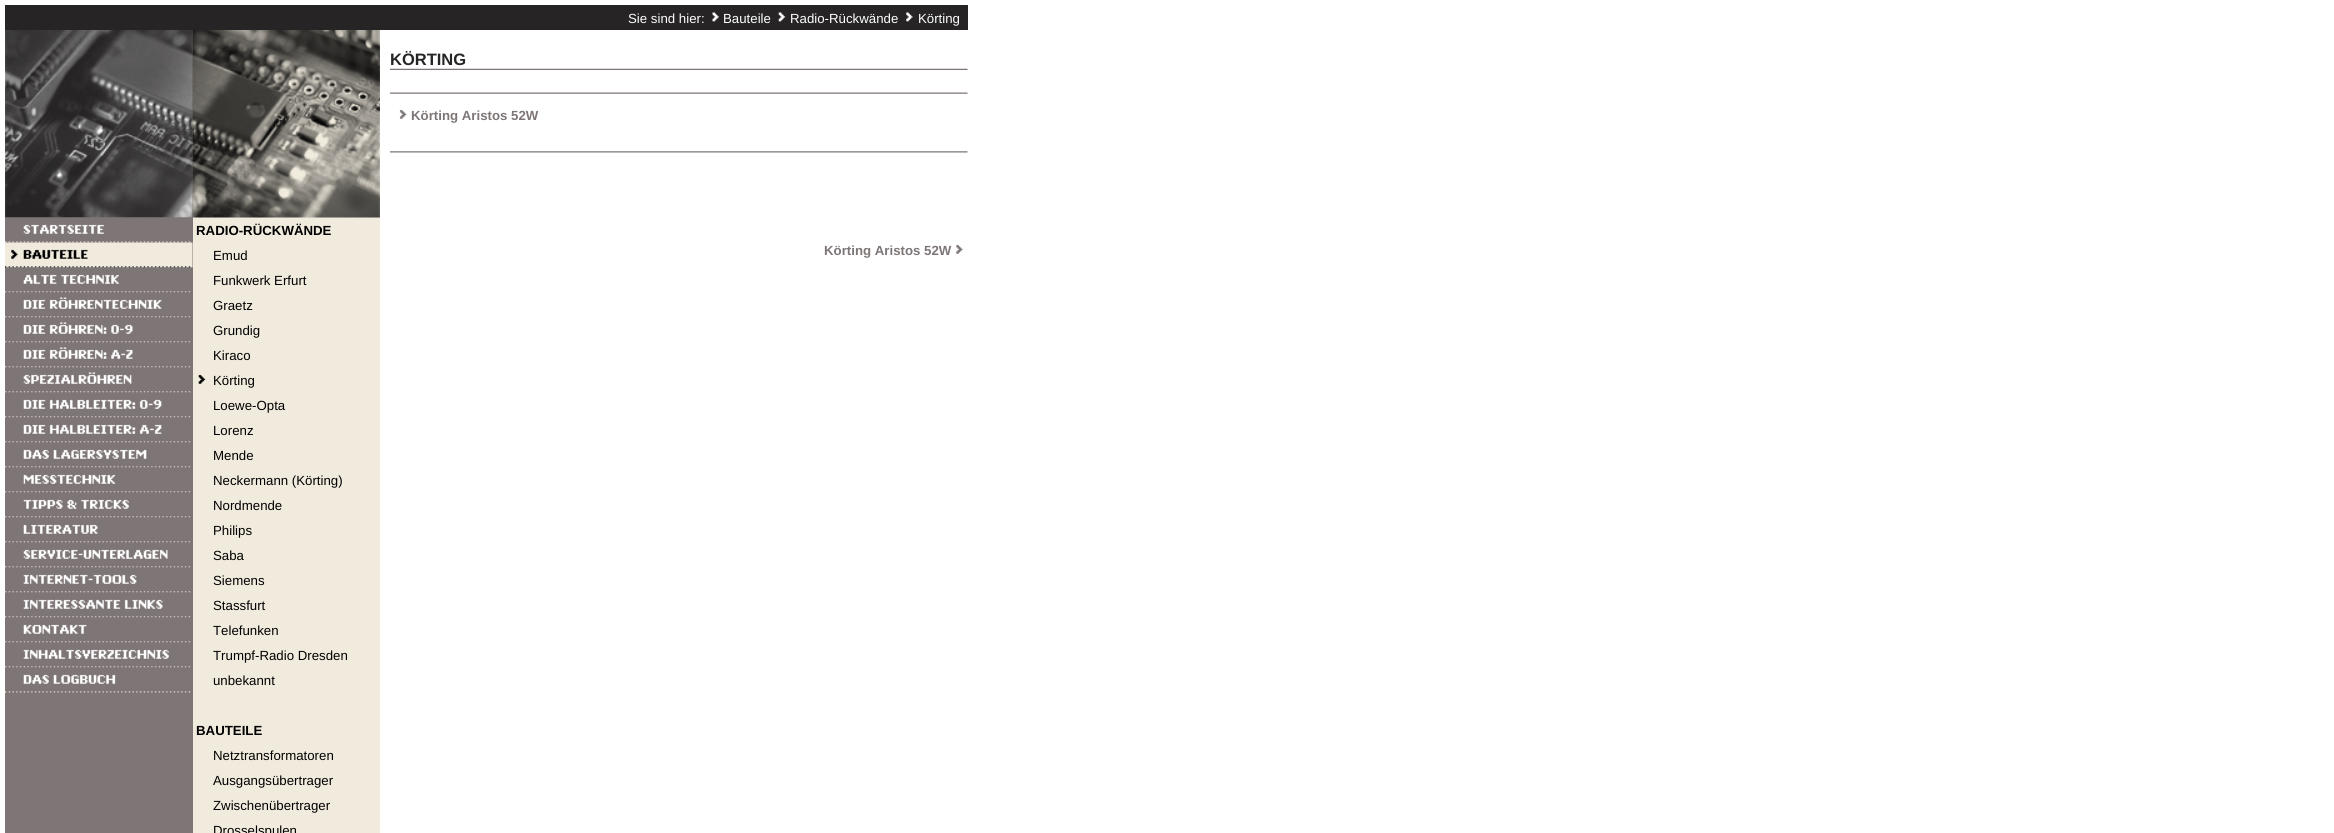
#include <cairo.h>
#include <math.h>
#include <stddef.h>


static void set_color(cairo_t *cr, unsigned color) {
    cairo_set_source_rgb(cr, (color >> 16) / 255.0, (color >> 8 & 255) / 255.0, (color & 255) / 255.0);
}

static void draw_text(cairo_t *cr, double x, double y, const char *s, const char *family, double size, int italic, int bold, unsigned color) {
    cairo_select_font_face(cr, family, italic ? CAIRO_FONT_SLANT_ITALIC : CAIRO_FONT_SLANT_NORMAL,
        bold ? CAIRO_FONT_WEIGHT_BOLD : CAIRO_FONT_WEIGHT_NORMAL);
    cairo_set_font_size(cr, size);
    set_color(cr, color);
    cairo_move_to(cr, x, y);
    cairo_show_text(cr, s);
}

static void fill_rect(cairo_t *cr, double x, double y, double w, double h, unsigned color) {
    set_color(cr, color);
    cairo_rectangle(cr, x, y, w, h);
    cairo_fill(cr);
}

static void draw_image(cairo_t *cr, const char *path, double x, double y, double w, double h) {
    cairo_surface_t *image = cairo_image_surface_create_from_png(path);
    cairo_save(cr);
    cairo_set_source_surface(cr, image, x, y);
    cairo_rectangle(cr, x, y, w, h);
    cairo_fill(cr);
    cairo_restore(cr);
    cairo_surface_destroy(image);
}

int main(void) {
    cairo_surface_t *surface = cairo_image_surface_create(CAIRO_FORMAT_RGB24, 2334, 833);
    cairo_t *cr = cairo_create(surface);
    cairo_font_options_t *options = cairo_font_options_create();
    cairo_font_options_set_hint_metrics(options, CAIRO_HINT_METRICS_OFF);
    cairo_font_options_set_hint_style(options, CAIRO_HINT_STYLE_NONE);
    cairo_set_font_options(cr, options);
    cairo_set_miter_limit(cr, 4);
    set_color(cr, 0xFFFFFF);
    cairo_paint(cr);
    fill_rect(cr, 5, 5, 963, 25, 0x262424);
    draw_text(cr, 628, 23, "Sie sind hier:", "Liberation Sans", 13.25, 0, 0, 0xFFFFFF);
    draw_image(cr, "assets/img1.png", 712, 12, 7, 10);
    draw_text(cr, 723, 23, "Bauteile", "Liberation Sans", 13.25, 0, 0, 0xFFFFFF);
    draw_image(cr, "assets/img2.png", 778, 12, 8, 10);
    draw_text(cr, 790, 23, "Radio-Rückwände", "Liberation Sans", 13.25, 0, 0, 0xFFFFFF);
    draw_image(cr, "assets/img3.png", 906, 12, 7, 10);
    draw_text(cr, 918, 23, "Körting", "Liberation Sans", 13.25, 0, 0, 0xFFFFFF);
    fill_rect(cr, 5, 30, 188, 803, 0x7E7676);
    draw_image(cr, "assets/img4.png", 5, 30, 188, 188);
    draw_image(cr, "assets/img5.png", 5, 217, 187, 26);
    draw_image(cr, "assets/img6.png", 5, 242, 188, 26);
    draw_image(cr, "assets/img7.png", 5, 267, 188, 26);
    draw_image(cr, "assets/img8.png", 5, 292, 186, 26);
    draw_image(cr, "assets/img9.png", 5, 317, 186, 26);
    draw_image(cr, "assets/img10.png", 5, 342, 186, 26);
    draw_image(cr, "assets/img11.png", 5, 367, 186, 26);
    draw_image(cr, "assets/img12.png", 5, 392, 186, 26);
    draw_image(cr, "assets/img13.png", 5, 417, 186, 26);
    draw_image(cr, "assets/img14.png", 5, 442, 186, 26);
    draw_image(cr, "assets/img15.png", 5, 467, 186, 26);
    draw_image(cr, "assets/img16.png", 5, 492, 186, 26);
    draw_image(cr, "assets/img17.png", 5, 517, 186, 26);
    draw_image(cr, "assets/img18.png", 5, 542, 186, 26);
    draw_image(cr, "assets/img19.png", 5, 567, 186, 26);
    draw_image(cr, "assets/img20.png", 5, 592, 186, 26);
    draw_image(cr, "assets/img21.png", 5, 617, 186, 26);
    draw_image(cr, "assets/img22.png", 5, 642, 186, 26);
    draw_image(cr, "assets/img23.png", 5, 667, 186, 26);
    draw_text(cr, 390, 65, "KÖRTING", "Liberation Sans", 16.5, 0, 1, 0x262424);
    draw_image(cr, "assets/img24.png", 390, 68, 578, 2);
    draw_image(cr, "assets/img25.png", 390, 92, 578, 2);
    draw_image(cr, "assets/img26.png", 399, 109, 8, 10);
    draw_text(cr, 411, 120, "Körting Aristos 52W", "Liberation Sans", 13.25, 0, 1, 0x7E7676);
    draw_image(cr, "assets/img27.png", 390, 151, 578, 2);
    draw_text(cr, 824, 255, "Körting Aristos 52W", "Liberation Sans", 13.25, 0, 1, 0x7E7676);
    draw_image(cr, "assets/img28.png", 956, 244, 7, 10);
    fill_rect(cr, 193, 217, 187, 616, 0xF1EBDE);
    draw_image(cr, "assets/img29.png", 192, 30, 188, 188);
    draw_text(cr, 196, 235, "RADIO-RÜCKWÄNDE", "Liberation Sans", 13.25, 0, 1, 0x000000);
    draw_text(cr, 213, 260, "Emud", "Liberation Sans", 13.25, 0, 0, 0x000000);
    draw_text(cr, 213, 285, "Funkwerk Erfurt", "Liberation Sans", 13.25, 0, 0, 0x000000);
    draw_text(cr, 213, 310, "Graetz", "Liberation Sans", 13.25, 0, 0, 0x000000);
    draw_text(cr, 213, 335, "Grundig", "Liberation Sans", 13.25, 0, 0, 0x000000);
    draw_text(cr, 213, 360, "Kiraco", "Liberation Sans", 13.25, 0, 0, 0x000000);
    draw_image(cr, "assets/img30.png", 198, 374, 8, 10);
    draw_text(cr, 213, 385, "Körting", "Liberation Sans", 13.25, 0, 0, 0x000000);
    draw_text(cr, 213, 410, "Loewe-Opta", "Liberation Sans", 13.25, 0, 0, 0x000000);
    draw_text(cr, 213, 435, "Lorenz", "Liberation Sans", 13.25, 0, 0, 0x000000);
    draw_text(cr, 213, 460, "Mende", "Liberation Sans", 13.25, 0, 0, 0x000000);
    draw_text(cr, 213, 485, "Neckermann (Körting)", "Liberation Sans", 13.25, 0, 0, 0x000000);
    draw_text(cr, 213, 510, "Nordmende", "Liberation Sans", 13.25, 0, 0, 0x000000);
    draw_text(cr, 213, 535, "Philips", "Liberation Sans", 13.25, 0, 0, 0x000000);
    draw_text(cr, 213, 560, "Saba", "Liberation Sans", 13.25, 0, 0, 0x000000);
    draw_text(cr, 213, 585, "Siemens", "Liberation Sans", 13.25, 0, 0, 0x000000);
    draw_text(cr, 213, 610, "Stassfurt", "Liberation Sans", 13.25, 0, 0, 0x000000);
    draw_text(cr, 213, 635, "Telefunken", "Liberation Sans", 13.25, 0, 0, 0x000000);
    draw_text(cr, 213, 660, "Trumpf-Radio Dresden", "Liberation Sans", 13.25, 0, 0, 0x000000);
    draw_text(cr, 213, 685, "unbekannt", "Liberation Sans", 13.25, 0, 0, 0x000000);
    draw_text(cr, 196, 735, "BAUTEILE", "Liberation Sans", 13.25, 0, 1, 0x000000);
    draw_text(cr, 213, 760, "Netztransformatoren", "Liberation Sans", 13.25, 0, 0, 0x000000);
    draw_text(cr, 213, 785, "Ausgangsübertrager", "Liberation Sans", 13.25, 0, 0, 0x000000);
    draw_text(cr, 213, 810, "Zwischenübertrager", "Liberation Sans", 13.25, 0, 0, 0x000000);
    draw_text(cr, 213, 835, "Drosselspulen", "Liberation Sans", 13.25, 0, 0, 0x000000);
    cairo_surface_write_to_png(surface, "output.png");
    cairo_font_options_destroy(options);
    cairo_destroy(cr);
    cairo_surface_destroy(surface);
    return 0;
}
